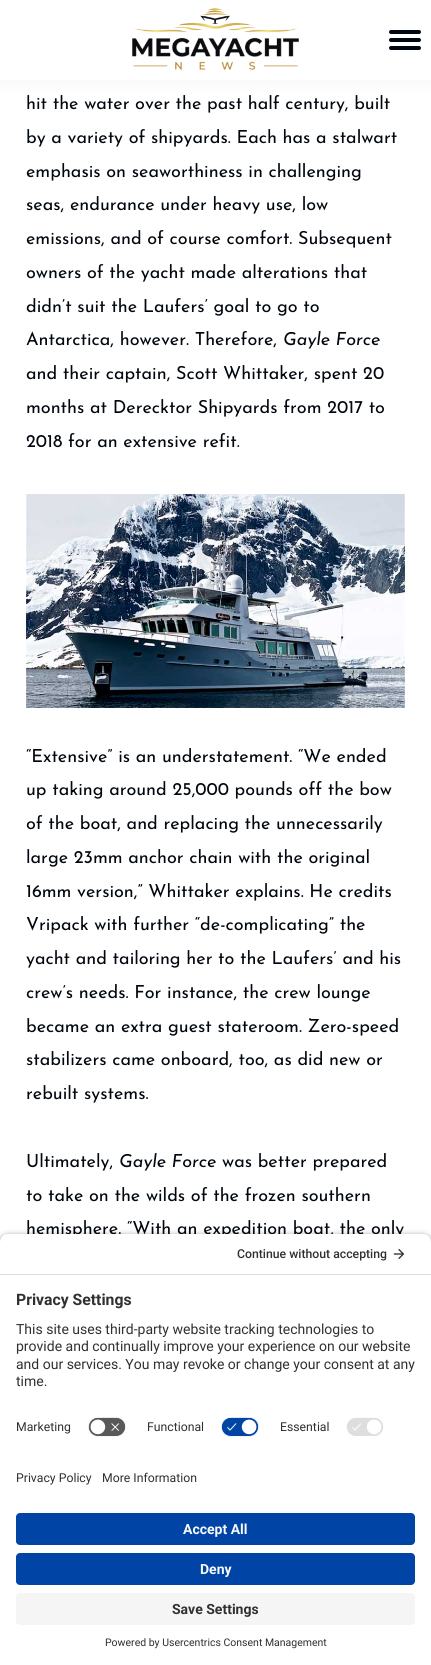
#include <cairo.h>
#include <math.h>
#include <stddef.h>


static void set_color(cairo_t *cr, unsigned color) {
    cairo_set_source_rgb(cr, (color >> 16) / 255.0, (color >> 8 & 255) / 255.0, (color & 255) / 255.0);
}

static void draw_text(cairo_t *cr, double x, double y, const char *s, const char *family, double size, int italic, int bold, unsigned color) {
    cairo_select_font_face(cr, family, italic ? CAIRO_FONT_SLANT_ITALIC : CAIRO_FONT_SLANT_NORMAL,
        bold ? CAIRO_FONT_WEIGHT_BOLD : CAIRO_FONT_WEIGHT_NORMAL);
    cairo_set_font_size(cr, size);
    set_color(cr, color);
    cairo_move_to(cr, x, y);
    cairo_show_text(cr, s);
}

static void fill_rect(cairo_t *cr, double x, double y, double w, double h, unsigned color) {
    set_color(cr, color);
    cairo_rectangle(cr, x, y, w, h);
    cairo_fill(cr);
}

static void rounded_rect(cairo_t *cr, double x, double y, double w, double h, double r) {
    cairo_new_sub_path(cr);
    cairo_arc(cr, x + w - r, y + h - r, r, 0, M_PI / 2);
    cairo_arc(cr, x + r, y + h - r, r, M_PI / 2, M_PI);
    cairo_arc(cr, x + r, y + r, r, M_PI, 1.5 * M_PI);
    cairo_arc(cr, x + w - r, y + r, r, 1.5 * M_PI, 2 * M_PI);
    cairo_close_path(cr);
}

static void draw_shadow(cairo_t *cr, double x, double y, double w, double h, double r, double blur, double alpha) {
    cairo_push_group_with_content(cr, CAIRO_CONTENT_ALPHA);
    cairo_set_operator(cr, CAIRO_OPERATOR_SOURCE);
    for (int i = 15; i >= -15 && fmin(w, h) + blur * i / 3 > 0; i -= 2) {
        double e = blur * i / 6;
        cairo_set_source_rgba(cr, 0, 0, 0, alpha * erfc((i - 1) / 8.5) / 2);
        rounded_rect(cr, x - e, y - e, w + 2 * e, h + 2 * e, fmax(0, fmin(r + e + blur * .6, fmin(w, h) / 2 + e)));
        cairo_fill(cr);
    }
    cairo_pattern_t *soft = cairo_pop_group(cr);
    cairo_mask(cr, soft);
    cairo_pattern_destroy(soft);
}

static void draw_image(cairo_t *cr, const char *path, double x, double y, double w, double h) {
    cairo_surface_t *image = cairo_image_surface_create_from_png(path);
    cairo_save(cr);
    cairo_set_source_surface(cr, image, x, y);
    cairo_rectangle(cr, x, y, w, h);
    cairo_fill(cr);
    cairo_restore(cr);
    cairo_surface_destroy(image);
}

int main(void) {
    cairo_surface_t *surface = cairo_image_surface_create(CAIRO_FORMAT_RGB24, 431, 1665);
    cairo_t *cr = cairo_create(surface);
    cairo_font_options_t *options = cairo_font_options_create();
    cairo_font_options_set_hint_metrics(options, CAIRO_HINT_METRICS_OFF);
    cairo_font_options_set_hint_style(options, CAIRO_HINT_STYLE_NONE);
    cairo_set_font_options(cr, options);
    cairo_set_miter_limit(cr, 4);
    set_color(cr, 0xFFFFFF);
    cairo_paint(cr);
    set_color(cr, 0x000000);
    draw_shadow(cr, 0, 0, 431, 80, 0, 10, 0.05);
    fill_rect(cr, 0, 0, 431, 80, 0xFFFFFF);
    draw_image(cr, "assets/img1.png", 132, 8, 167, 63);
    set_color(cr, 0x01070E);
    rounded_rect(cr, 389, 30, 32, 4, 2);
    cairo_fill(cr);
    rounded_rect(cr, 389, 38, 32, 4, 2);
    cairo_fill(cr);
    rounded_rect(cr, 389, 46, 32, 4, 2);
    cairo_fill(cr);
    draw_text(cr, 26, 109, "hit the water over the past half century, built", "Josefin Sans Thin", 18, 0, 0, 0x01070E);
    draw_text(cr, 26, 143, "by a variety of shipyards. Each has a stalwart", "Josefin Sans Thin", 18, 0, 0, 0x01070E);
    draw_text(cr, 26, 177, "emphasis on seaworthiness in challenging", "Josefin Sans Thin", 18, 0, 0, 0x01070E);
    draw_text(cr, 26, 210, "seas, endurance under heavy use, low", "Josefin Sans Thin", 18, 0, 0, 0x01070E);
    draw_text(cr, 26, 244, "emissions, and of course comfort. Subsequent", "Josefin Sans Thin", 18, 0, 0, 0x01070E);
    draw_text(cr, 26, 278, "owners of the yacht made alterations that", "Josefin Sans Thin", 18, 0, 0, 0x01070E);
    draw_text(cr, 26, 312, "didn’t suit the Laufers’ goal to go to", "Josefin Sans Thin", 18, 0, 0, 0x01070E);
    draw_text(cr, 26, 345, "Antarctica, however. Therefore,", "Josefin Sans Thin", 18, 0, 0, 0x01070E);
    draw_text(cr, 283, 345, "Gayle Force", "Josefin Sans Thin", 18, 1, 0, 0x01070E);
    draw_text(cr, 26, 379, "and their captain, Scott Whittaker, spent 20", "Josefin Sans Thin", 18, 0, 0, 0x01070E);
    draw_text(cr, 26, 413, "months at Derecktor Shipyards from 2017 to", "Josefin Sans Thin", 18, 0, 0, 0x01070E);
    draw_text(cr, 26, 447, "2018 for an extensive refit.", "Josefin Sans Thin", 18, 0, 0, 0x01070E);
    draw_image(cr, "assets/img2.png", 26, 494, 379, 214);
    draw_text(cr, 26, 762, "“Extensive” is an understatement. “We ended", "Josefin Sans Thin", 18, 0, 0, 0x01070E);
    draw_text(cr, 26, 795, "up taking around 25,000 pounds off the bow", "Josefin Sans Thin", 18, 0, 0, 0x01070E);
    draw_text(cr, 26, 829, "of the boat, and replacing the unnecessarily", "Josefin Sans Thin", 18, 0, 0, 0x01070E);
    draw_text(cr, 26, 863, "large 23mm anchor chain with the original", "Josefin Sans Thin", 18, 0, 0, 0x01070E);
    draw_text(cr, 26, 897, "16mm version,” Whittaker explains. He credits", "Josefin Sans Thin", 18, 0, 0, 0x01070E);
    draw_text(cr, 26, 930, "Vripack with further “de-complicating” the", "Josefin Sans Thin", 18, 0, 0, 0x01070E);
    draw_text(cr, 26, 964, "yacht and tailoring her to the Laufers’ and his", "Josefin Sans Thin", 18, 0, 0, 0x01070E);
    draw_text(cr, 26, 998, "crew’s needs. For instance, the crew lounge", "Josefin Sans Thin", 18, 0, 0, 0x01070E);
    draw_text(cr, 26, 1032, "became an extra guest stateroom. Zero-speed", "Josefin Sans Thin", 18, 0, 0, 0x01070E);
    draw_text(cr, 26, 1065, "stabilizers came onboard, too, as did new or", "Josefin Sans Thin", 18, 0, 0, 0x01070E);
    draw_text(cr, 26, 1099, "rebuilt systems.", "Josefin Sans Thin", 18, 0, 0, 0x01070E);
    draw_text(cr, 26, 1167, "Ultimately,", "Josefin Sans Thin", 18, 0, 0, 0x01070E);
    draw_text(cr, 119, 1167, "Gayle Force", "Josefin Sans Thin", 18, 1, 0, 0x01070E);
    draw_text(cr, 222, 1167, "was better prepared", "Josefin Sans Thin", 18, 0, 0, 0x01070E);
    draw_text(cr, 26, 1201, "to take on the wilds of the frozen southern", "Josefin Sans Thin", 18, 0, 0, 0x01070E);
    draw_text(cr, 26, 1234, "hemisphere. “With an expedition boat, the only", "Josefin Sans Thin", 18, 0, 0, 0x01070E);
    set_color(cr, 0x000000);
    draw_shadow(cr, 0, 1237, 431, 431, 8, 3.5, 0.8);
    set_color(cr, 0xFFFFFF);
    cairo_new_path(cr);
    cairo_move_to(cr, 8, 1234);
    cairo_line_to(cr, 423, 1234);
    cairo_curve_to(cr, 427.5, 1234, 431, 1237.5, 431, 1242);
    cairo_line_to(cr, 431, 1275);
    cairo_line_to(cr, 0, 1275);
    cairo_line_to(cr, 0, 1242);
    cairo_curve_to(cr, 0, 1237.5, 3.5, 1234, 8, 1234);
    cairo_close_path(cr);
    cairo_fill(cr);
    fill_rect(cr, 0, 1274, 431, 1, 0xDEDEDE);
    draw_text(cr, 237, 1258, "Continue without accepting", "Roboto Medium", 12.25, 0, 0, 0x303030);
    draw_image(cr, "assets/img3.png", 393, 1249, 11, 10);
    fill_rect(cr, 0, 1275, 431, 390, 0xFFFFFF);
    draw_text(cr, 16, 1305, "Privacy Settings", "Roboto", 15.75, 0, 1, 0x303030);
    draw_text(cr, 16, 1334, "This site uses third-party website tracking technologies to", "Roboto", 14, 0, 0, 0x303030);
    draw_text(cr, 16, 1351, "provide and continually improve your experience on our website", "Roboto", 14, 0, 0, 0x303030);
    draw_text(cr, 16, 1369, "and our services. You may revoke or change your consent at any", "Roboto", 14, 0, 0, 0x303030);
    draw_text(cr, 16, 1386, "time.", "Roboto", 14, 0, 0, 0x303030);
    draw_text(cr, 16, 1431, "Marketing", "Roboto", 12.25, 0, 0, 0x303030);
    draw_image(cr, "assets/img4.png", 88, 1417, 38, 20);
    draw_text(cr, 147, 1431, "Functional", "Roboto", 12.25, 0, 0, 0x303030);
    draw_image(cr, "assets/img5.png", 221, 1417, 38, 20);
    draw_text(cr, 280, 1431, "Essential", "Roboto", 12.25, 0, 0, 0x303030);
    draw_image(cr, "assets/img6.png", 346, 1417, 38, 19);
    draw_text(cr, 16, 1482, "Privacy Policy", "Roboto", 12.25, 0, 0, 0x303030);
    draw_text(cr, 102, 1482, "More Information", "Roboto", 12.25, 0, 0, 0x303030);
    set_color(cr, 0x0045A5);
    rounded_rect(cr, 16, 1513, 399, 32, 4);
    cairo_fill(cr);
    draw_text(cr, 183, 1534, "Accept All", "Roboto", 14, 0, 1, 0xFAFAFA);
    set_color(cr, 0x0045A5);
    rounded_rect(cr, 16, 1553, 399, 32, 4);
    cairo_fill(cr);
    draw_text(cr, 200, 1574, "Deny", "Roboto", 14, 0, 1, 0xFAFAFA);
    set_color(cr, 0xF5F5F5);
    rounded_rect(cr, 16, 1593, 399, 32, 4);
    cairo_fill(cr);
    draw_text(cr, 172, 1614, "Save Settings", "Roboto", 14, 0, 1, 0x303030);
    draw_text(cr, 105, 1646, "Powered by Usercentrics Consent Management", "Roboto", 10.5, 0, 0, 0x303030);
    cairo_surface_write_to_png(surface, "output.png");
    cairo_font_options_destroy(options);
    cairo_destroy(cr);
    cairo_surface_destroy(surface);
    return 0;
}
